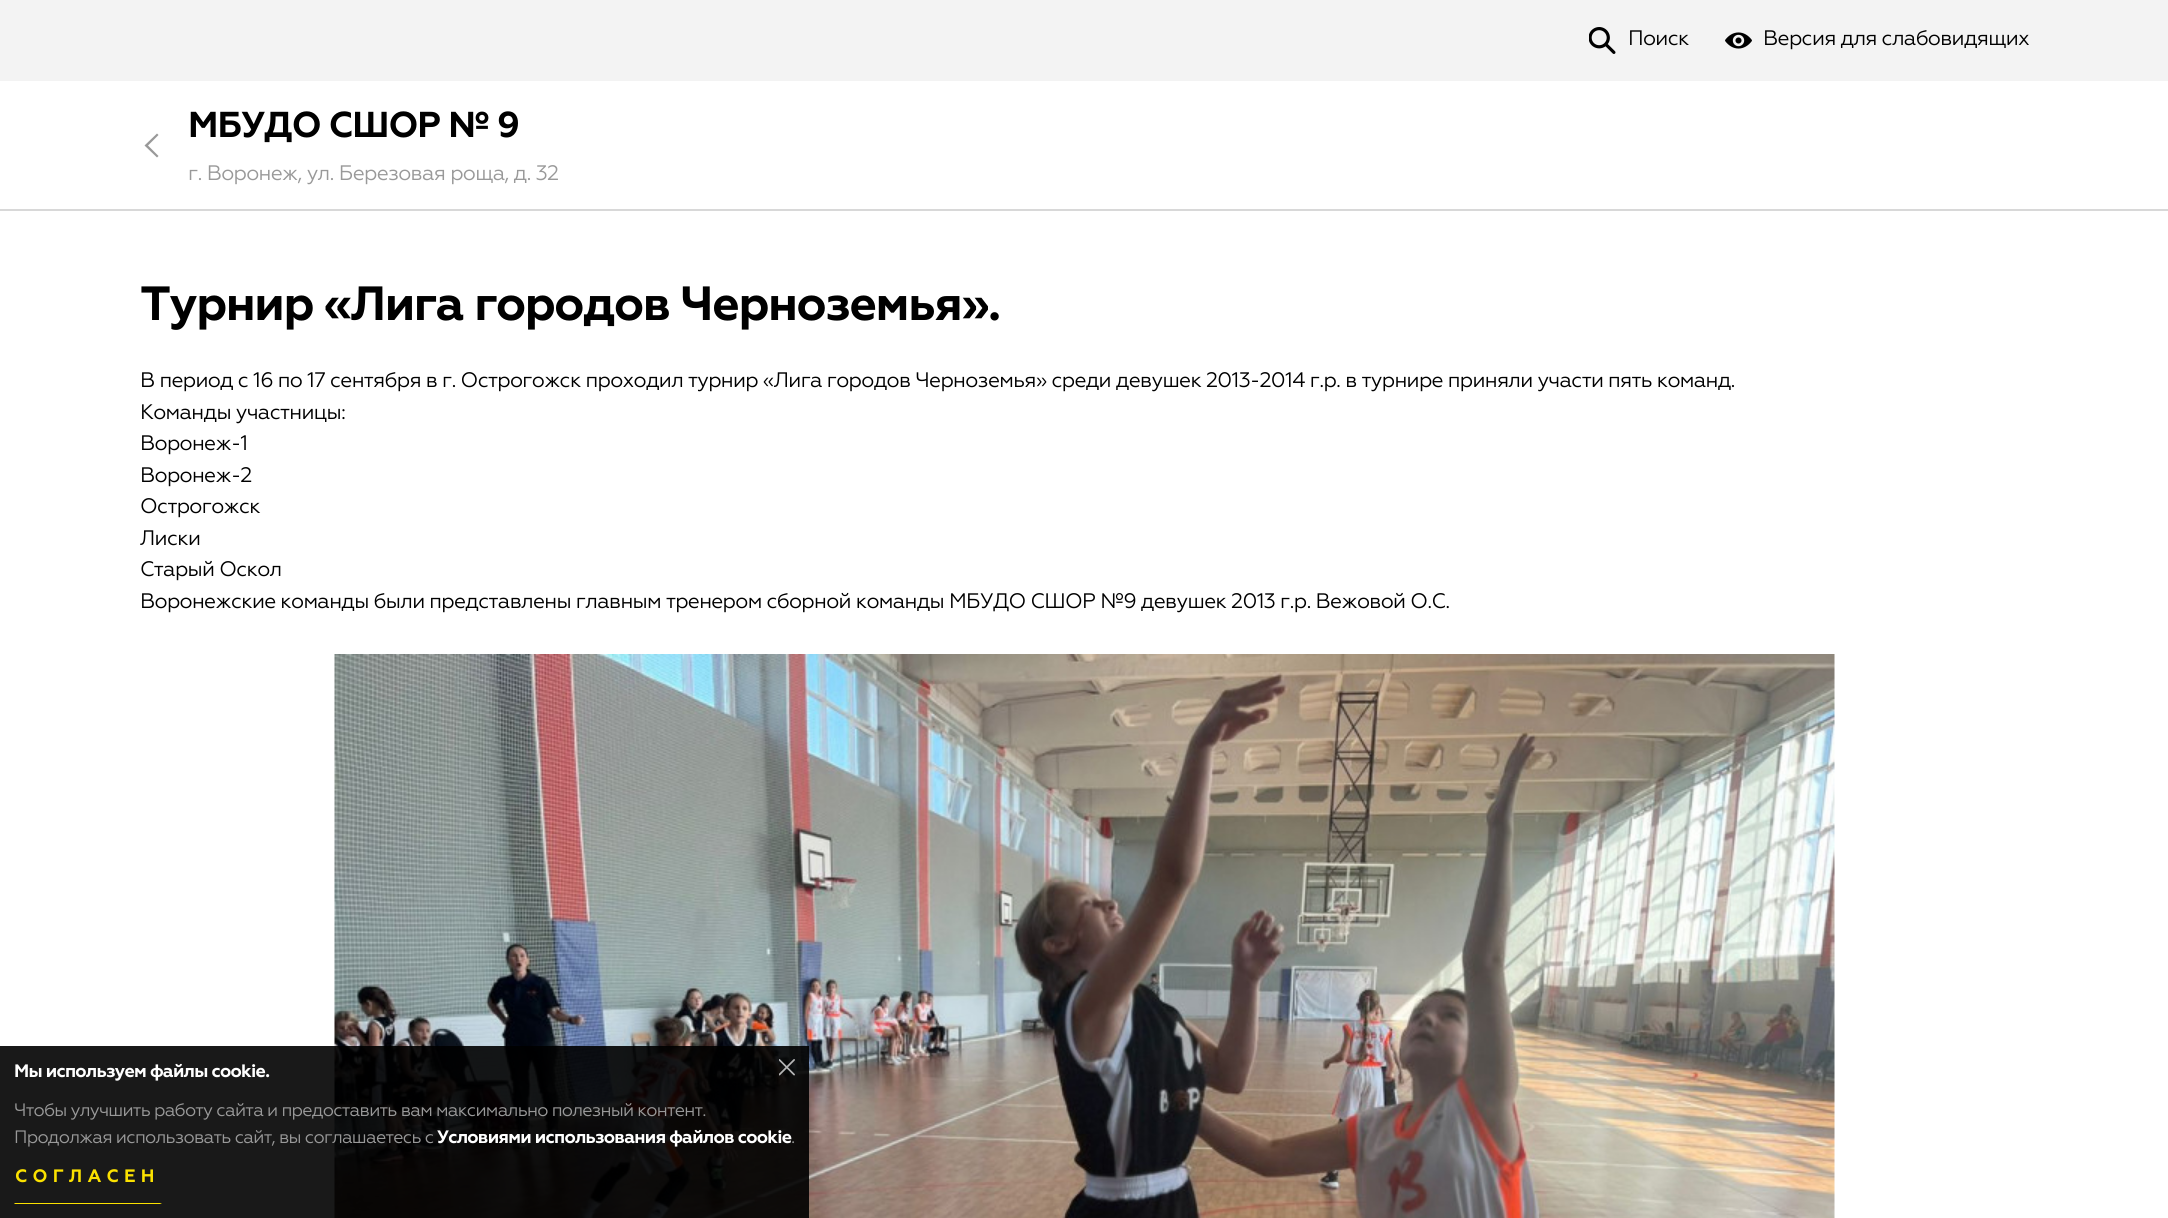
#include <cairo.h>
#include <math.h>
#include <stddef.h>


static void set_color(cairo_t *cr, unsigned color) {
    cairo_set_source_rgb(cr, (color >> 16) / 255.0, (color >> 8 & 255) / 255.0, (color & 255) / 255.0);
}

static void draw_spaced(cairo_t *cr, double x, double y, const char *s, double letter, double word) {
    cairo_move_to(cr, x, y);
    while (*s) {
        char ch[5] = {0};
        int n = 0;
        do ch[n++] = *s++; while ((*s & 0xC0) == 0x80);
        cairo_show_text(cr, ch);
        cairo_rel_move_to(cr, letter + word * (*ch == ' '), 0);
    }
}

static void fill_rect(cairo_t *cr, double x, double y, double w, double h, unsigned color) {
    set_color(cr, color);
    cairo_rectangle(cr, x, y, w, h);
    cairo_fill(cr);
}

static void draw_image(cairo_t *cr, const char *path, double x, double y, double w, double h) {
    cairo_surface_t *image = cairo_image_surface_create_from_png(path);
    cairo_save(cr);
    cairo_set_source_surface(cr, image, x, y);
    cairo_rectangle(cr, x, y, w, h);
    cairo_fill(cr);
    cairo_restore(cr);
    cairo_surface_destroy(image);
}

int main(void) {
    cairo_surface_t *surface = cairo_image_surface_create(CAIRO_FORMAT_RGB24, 2168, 1218);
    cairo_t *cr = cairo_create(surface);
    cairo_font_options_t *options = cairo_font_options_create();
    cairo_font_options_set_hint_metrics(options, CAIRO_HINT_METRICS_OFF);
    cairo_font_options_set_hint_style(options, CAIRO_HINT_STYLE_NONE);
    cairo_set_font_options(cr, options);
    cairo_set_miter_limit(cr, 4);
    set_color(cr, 0xFFFFFF);
    cairo_paint(cr);
    fill_rect(cr, 0, 0, 2168, 81, 0xF3F3F3);
    draw_image(cr, "assets/img1.png", 1589, 27, 27, 27);
    cairo_select_font_face(cr, "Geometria", CAIRO_FONT_SLANT_NORMAL, CAIRO_FONT_WEIGHT_NORMAL);
    cairo_set_font_size(cr, 21);
    set_color(cr, 0x000000);
    draw_spaced(cr, 1628, 45, "Поиск", -0.68, 0);
    draw_image(cr, "assets/img2.png", 1725, 32, 27, 17);
    draw_spaced(cr, 1763, 45, "Версия для слабовидящих", -0.68, 0);
    fill_rect(cr, 0, 209, 2168, 2, 0xD8D8D8);
    set_color(cr, 0x999999);
    cairo_new_path(cr);
    cairo_move_to(cr, 158.5, 135);
    cairo_line_to(cr, 157, 133.5);
    cairo_line_to(cr, 144.5, 145.5);
    cairo_line_to(cr, 157, 157.5);
    cairo_line_to(cr, 158.5, 156);
    cairo_line_to(cr, 148, 145.5);
    cairo_close_path(cr);
    cairo_fill(cr);
    cairo_select_font_face(cr, "Geometria", CAIRO_FONT_SLANT_NORMAL, CAIRO_FONT_WEIGHT_BOLD);
    cairo_set_font_size(cr, 36);
    set_color(cr, 0x000000);
    draw_spaced(cr, 188, 137, "МБУДО СШОР № 9", -1, 0);
    cairo_select_font_face(cr, "Geometria", CAIRO_FONT_SLANT_NORMAL, CAIRO_FONT_WEIGHT_NORMAL);
    cairo_set_font_size(cr, 21);
    set_color(cr, 0x999999);
    draw_spaced(cr, 188, 180, "г. Воронеж, ул. Березовая роща, д. 32", -0.68, 0);
    cairo_select_font_face(cr, "Geometria", CAIRO_FONT_SLANT_NORMAL, CAIRO_FONT_WEIGHT_BOLD);
    cairo_set_font_size(cr, 48);
    set_color(cr, 0x000000);
    draw_spaced(cr, 140, 320, "Турнир «Лига городов Черноземья».", -1.35, 0);
    cairo_select_font_face(cr, "Geometria", CAIRO_FONT_SLANT_NORMAL, CAIRO_FONT_WEIGHT_NORMAL);
    cairo_set_font_size(cr, 21);
    draw_spaced(cr, 140, 387, "В период с 16 по 17 сентября в г. Острогожск проходил турнир «Лига городов Черноземья» среди девушек 2013-2014 г.р. в турнире приняли участи пять команд.", -0.68, 0);
    draw_spaced(cr, 140, 419, "Команды участницы:", -0.68, 0);
    draw_spaced(cr, 140, 450, "Воронеж-1", -0.68, 0);
    draw_spaced(cr, 140, 482, "Воронеж-2", -0.68, 0);
    draw_spaced(cr, 140, 513, "Острогожск", -0.68, 0);
    draw_spaced(cr, 140, 545, "Лиски", -0.68, 0);
    draw_spaced(cr, 140, 576, "Старый Оскол", -0.68, 0);
    draw_spaced(cr, 140, 608, "Воронежские команды были представлены главным тренером сборной команды МБУДО СШОР №9 девушек 2013 г.р. Вежовой О.С.", -0.68, 0);
    draw_image(cr, "assets/img3.png", 334, 654, 1501, 564);
    cairo_set_source_rgba(cr, 0, 0, 0, 0.9);
    cairo_rectangle(cr, 0, 1046, 809, 172);
    cairo_fill(cr);
    cairo_select_font_face(cr, "Geometria", CAIRO_FONT_SLANT_NORMAL, CAIRO_FONT_WEIGHT_BOLD);
    cairo_set_font_size(cr, 18);
    set_color(cr, 0xFFFFFF);
    draw_spaced(cr, 14, 1077, "Мы используем файлы cookie.", -0.75, 0);
    draw_image(cr, "assets/img4.png", 779, 1059, 16, 17);
    cairo_select_font_face(cr, "Geometria", CAIRO_FONT_SLANT_NORMAL, CAIRO_FONT_WEIGHT_NORMAL);
    set_color(cr, 0x999999);
    draw_spaced(cr, 14, 1116, "Чтобы улучшить работу сайта и предоставить вам максимально полезный контент.", -0.75, 0);
    draw_spaced(cr, 14, 1143, "Продолжая использовать сайт, вы соглашаетесь с", -0.75, 0);
    cairo_select_font_face(cr, "Geometria", CAIRO_FONT_SLANT_NORMAL, CAIRO_FONT_WEIGHT_BOLD);
    set_color(cr, 0xFFFFFF);
    draw_spaced(cr, 437, 1143, "Условиями использования файлов cookie", -0.75, 0);
    cairo_select_font_face(cr, "Geometria", CAIRO_FONT_SLANT_NORMAL, CAIRO_FONT_WEIGHT_NORMAL);
    set_color(cr, 0x999999);
    draw_spaced(cr, 791, 1143, ".", -0.75, 0);
    set_color(cr, 0xFBE100);
    cairo_new_path(cr);
    cairo_move_to(cr, 162, 1204);
    cairo_line_to(cr, 14, 1204);
    cairo_line_to(cr, 15, 1203);
    cairo_line_to(cr, 160, 1203);
    cairo_close_path(cr);
    cairo_fill(cr);
    cairo_select_font_face(cr, "Geometria", CAIRO_FONT_SLANT_NORMAL, CAIRO_FONT_WEIGHT_BOLD);
    draw_spaced(cr, 15, 1182, "СОГЛАСЕН", 5.25, 0);
    cairo_surface_write_to_png(surface, "output.png");
    cairo_font_options_destroy(options);
    cairo_destroy(cr);
    cairo_surface_destroy(surface);
    return 0;
}
